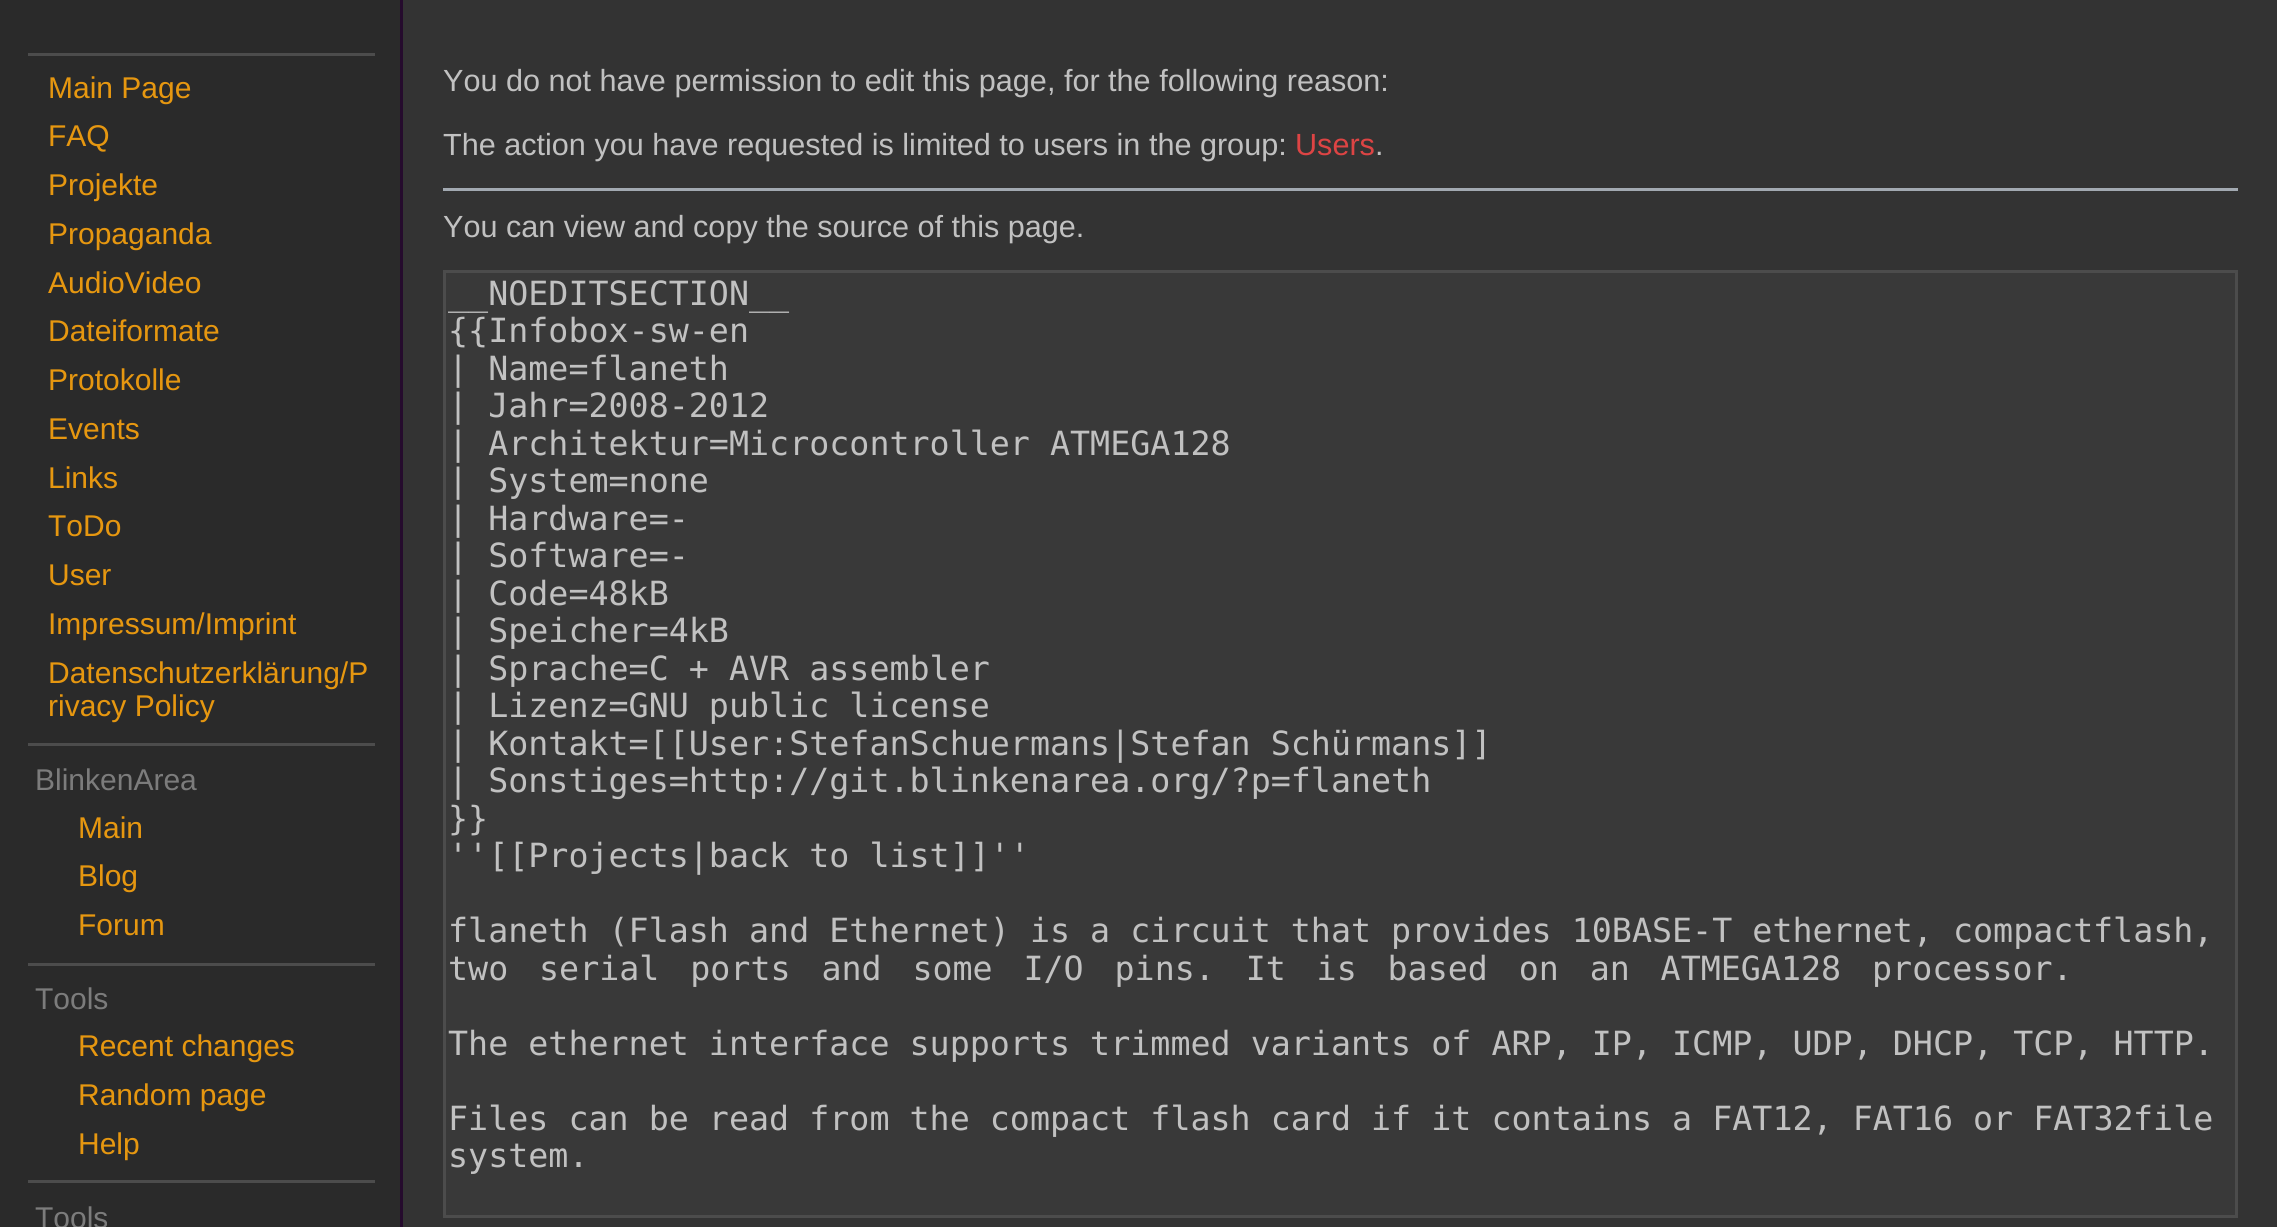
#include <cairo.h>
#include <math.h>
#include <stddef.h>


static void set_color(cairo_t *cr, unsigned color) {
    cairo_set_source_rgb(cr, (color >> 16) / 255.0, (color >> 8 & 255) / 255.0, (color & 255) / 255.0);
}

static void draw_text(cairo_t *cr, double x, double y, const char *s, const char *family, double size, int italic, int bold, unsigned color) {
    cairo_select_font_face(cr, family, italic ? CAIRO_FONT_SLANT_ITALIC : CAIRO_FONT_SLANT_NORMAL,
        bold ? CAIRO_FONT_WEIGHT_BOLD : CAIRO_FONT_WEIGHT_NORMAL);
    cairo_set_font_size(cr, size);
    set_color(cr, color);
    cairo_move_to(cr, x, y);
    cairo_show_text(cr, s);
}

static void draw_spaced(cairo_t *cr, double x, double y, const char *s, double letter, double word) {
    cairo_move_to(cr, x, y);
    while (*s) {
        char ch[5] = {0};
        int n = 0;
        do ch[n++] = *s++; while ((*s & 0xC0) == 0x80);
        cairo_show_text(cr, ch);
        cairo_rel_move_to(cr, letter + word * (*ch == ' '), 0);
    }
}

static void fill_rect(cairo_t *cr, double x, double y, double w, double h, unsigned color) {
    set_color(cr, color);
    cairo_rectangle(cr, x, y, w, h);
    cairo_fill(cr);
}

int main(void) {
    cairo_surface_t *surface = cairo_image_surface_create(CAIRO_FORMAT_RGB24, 2277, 1227);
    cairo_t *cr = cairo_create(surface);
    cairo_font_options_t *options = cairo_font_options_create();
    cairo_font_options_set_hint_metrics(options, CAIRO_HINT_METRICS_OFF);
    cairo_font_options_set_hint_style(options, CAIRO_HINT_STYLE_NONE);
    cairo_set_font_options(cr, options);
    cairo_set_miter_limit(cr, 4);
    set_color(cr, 0x2A2A2A);
    cairo_paint(cr);
    fill_rect(cr, 28, 53, 347, 3, 0x4C4C4C);
    draw_text(cr, 48, 98, "Main Page", "Liberation Sans", 30, 0, 0, 0xE69710);
    draw_text(cr, 48, 146, "FAQ", "Liberation Sans", 30, 0, 0, 0xE69710);
    draw_text(cr, 48, 195, "Projekte", "Liberation Sans", 30, 0, 0, 0xE69710);
    draw_text(cr, 48, 244, "Propaganda", "Liberation Sans", 30, 0, 0, 0xE69710);
    draw_text(cr, 48, 293, "AudioVideo", "Liberation Sans", 30, 0, 0, 0xE69710);
    draw_text(cr, 48, 341, "Dateiformate", "Liberation Sans", 30, 0, 0, 0xE69710);
    draw_text(cr, 48, 390, "Protokolle", "Liberation Sans", 30, 0, 0, 0xE69710);
    draw_text(cr, 48, 439, "Events", "Liberation Sans", 30, 0, 0, 0xE69710);
    draw_text(cr, 48, 488, "Links", "Liberation Sans", 30, 0, 0, 0xE69710);
    draw_text(cr, 48, 536, "ToDo", "Liberation Sans", 30, 0, 0, 0xE69710);
    draw_text(cr, 48, 585, "User", "Liberation Sans", 30, 0, 0, 0xE69710);
    draw_text(cr, 48, 634, "Impressum/Imprint", "Liberation Sans", 30, 0, 0, 0xE69710);
    draw_text(cr, 48, 683, "Datenschutzerklärung/P", "Liberation Sans", 30, 0, 0, 0xE69710);
    draw_text(cr, 48, 716, "rivacy Policy", "Liberation Sans", 30, 0, 0, 0xE69710);
    fill_rect(cr, 28, 743, 347, 3, 0x4C4C4C);
    draw_text(cr, 35, 790, "BlinkenArea", "Liberation Sans", 30, 0, 0, 0x7C7C7C);
    draw_text(cr, 78, 838, "Main", "Liberation Sans", 30, 0, 0, 0xE69710);
    draw_text(cr, 78, 886, "Blog", "Liberation Sans", 30, 0, 0, 0xE69710);
    draw_text(cr, 78, 935, "Forum", "Liberation Sans", 30, 0, 0, 0xE69710);
    fill_rect(cr, 28, 963, 347, 3, 0x4C4C4C);
    draw_text(cr, 35, 1009, "Tools", "Liberation Sans", 30, 0, 0, 0x7C7C7C);
    draw_text(cr, 78, 1056, "Recent changes", "Liberation Sans", 30, 0, 0, 0xE69710);
    draw_text(cr, 78, 1105, "Random page", "Liberation Sans", 30, 0, 0, 0xE69710);
    draw_text(cr, 78, 1154, "Help", "Liberation Sans", 30, 0, 0, 0xE69710);
    fill_rect(cr, 28, 1180, 347, 3, 0x4C4C4C);
    draw_text(cr, 35, 1228, "Tools", "Liberation Sans", 30, 0, 0, 0x7C7C7C);
    fill_rect(cr, 403, 0, 1874, 1227, 0x333333);
    fill_rect(cr, 400, 0, 3, 1227, 0x250B2D);
    draw_text(cr, 443, 91, "You do not have permission to edit this page, for the following reason:", "Liberation Sans", 30.6, 0, 0, 0xC1C1C1);
    draw_text(cr, 443, 155, "The action you have requested is limited to users in the group:", "Liberation Sans", 30.6, 0, 0, 0xC1C1C1);
    draw_text(cr, 1295, 155, "Users", "Liberation Sans", 30.6, 0, 0, 0xDD4444);
    draw_text(cr, 1375, 155, ".", "Liberation Sans", 30.6, 0, 0, 0xC1C1C1);
    fill_rect(cr, 443, 188, 1795, 3, 0xA2A9B1);
    draw_text(cr, 443, 237, "You can view and copy the source of this page.", "Liberation Sans", 30.6, 0, 0, 0xC1C1C1);
    set_color(cr, 0x393939);
    cairo_rectangle(cr, 444.5, 271.5, 1792, 945);
    cairo_fill_preserve(cr);
    set_color(cr, 0x4C4C4C);
    cairo_set_line_width(cr, 3);
    cairo_stroke(cr);
    draw_text(cr, 448, 305, "__NOEDITSECTION__", "DejaVu Sans Mono", 33.33, 0, 0, 0xC1C1C1);
    draw_text(cr, 448, 342, "{{Infobox-sw-en", "DejaVu Sans Mono", 33.33, 0, 0, 0xC1C1C1);
    draw_text(cr, 448, 380, "| Name=flaneth", "DejaVu Sans Mono", 33.33, 0, 0, 0xC1C1C1);
    draw_text(cr, 448, 417, "| Jahr=2008-2012", "DejaVu Sans Mono", 33.33, 0, 0, 0xC1C1C1);
    draw_text(cr, 448, 455, "| Architektur=Microcontroller ATMEGA128", "DejaVu Sans Mono", 33.33, 0, 0, 0xC1C1C1);
    draw_text(cr, 448, 492, "| System=none", "DejaVu Sans Mono", 33.33, 0, 0, 0xC1C1C1);
    draw_text(cr, 448, 530, "| Hardware=-", "DejaVu Sans Mono", 33.33, 0, 0, 0xC1C1C1);
    draw_text(cr, 448, 567, "| Software=-", "DejaVu Sans Mono", 33.33, 0, 0, 0xC1C1C1);
    draw_text(cr, 448, 605, "| Code=48kB", "DejaVu Sans Mono", 33.33, 0, 0, 0xC1C1C1);
    draw_text(cr, 448, 642, "| Speicher=4kB", "DejaVu Sans Mono", 33.33, 0, 0, 0xC1C1C1);
    draw_text(cr, 448, 680, "| Sprache=C + AVR assembler", "DejaVu Sans Mono", 33.33, 0, 0, 0xC1C1C1);
    draw_text(cr, 448, 717, "| Lizenz=GNU public license", "DejaVu Sans Mono", 33.33, 0, 0, 0xC1C1C1);
    draw_text(cr, 448, 755, "| Kontakt=[[User:StefanSchuermans|Stefan Schürmans]]", "DejaVu Sans Mono", 33.33, 0, 0, 0xC1C1C1);
    draw_text(cr, 448, 792, "| Sonstiges=http://git.blinkenarea.org/?p=flaneth", "DejaVu Sans Mono", 33.33, 0, 0, 0xC1C1C1);
    draw_text(cr, 448, 830, "}}", "DejaVu Sans Mono", 33.33, 0, 0, 0xC1C1C1);
    draw_text(cr, 448, 867, "''[[Projects|back to list]]''", "DejaVu Sans Mono", 33.33, 0, 0, 0xC1C1C1);
    draw_text(cr, 448, 942, "flaneth (Flash and Ethernet) is a circuit that provides 10BASE-T ethernet, compact", "DejaVu Sans Mono", 33.33, 0, 0, 0xC1C1C1);
    draw_text(cr, 2093, 942, "flash,", "DejaVu Sans Mono", 33.33, 0, 0, 0xC1C1C1);
    draw_spaced(cr, 448, 980, "two serial ports and some I/O pins. It is based on an ATMEGA128 processor.", 0, 10.75);
    draw_text(cr, 448, 1055, "The ethernet interface supports trimmed variants of ARP, IP, ICMP, UDP, DHCP, TCP, HTTP.", "DejaVu Sans Mono", 33.33, 0, 0, 0xC1C1C1);
    draw_text(cr, 448, 1130, "Files can be read from the compact flash card if it contains a FAT12, FAT16 or FAT32", "DejaVu Sans Mono", 33.33, 0, 0, 0xC1C1C1);
    draw_text(cr, 2133, 1130, "file", "DejaVu Sans Mono", 33.33, 0, 0, 0xC1C1C1);
    draw_text(cr, 448, 1167, "system.", "DejaVu Sans Mono", 33.33, 0, 0, 0xC1C1C1);
    cairo_surface_write_to_png(surface, "output.png");
    cairo_font_options_destroy(options);
    cairo_destroy(cr);
    cairo_surface_destroy(surface);
    return 0;
}
